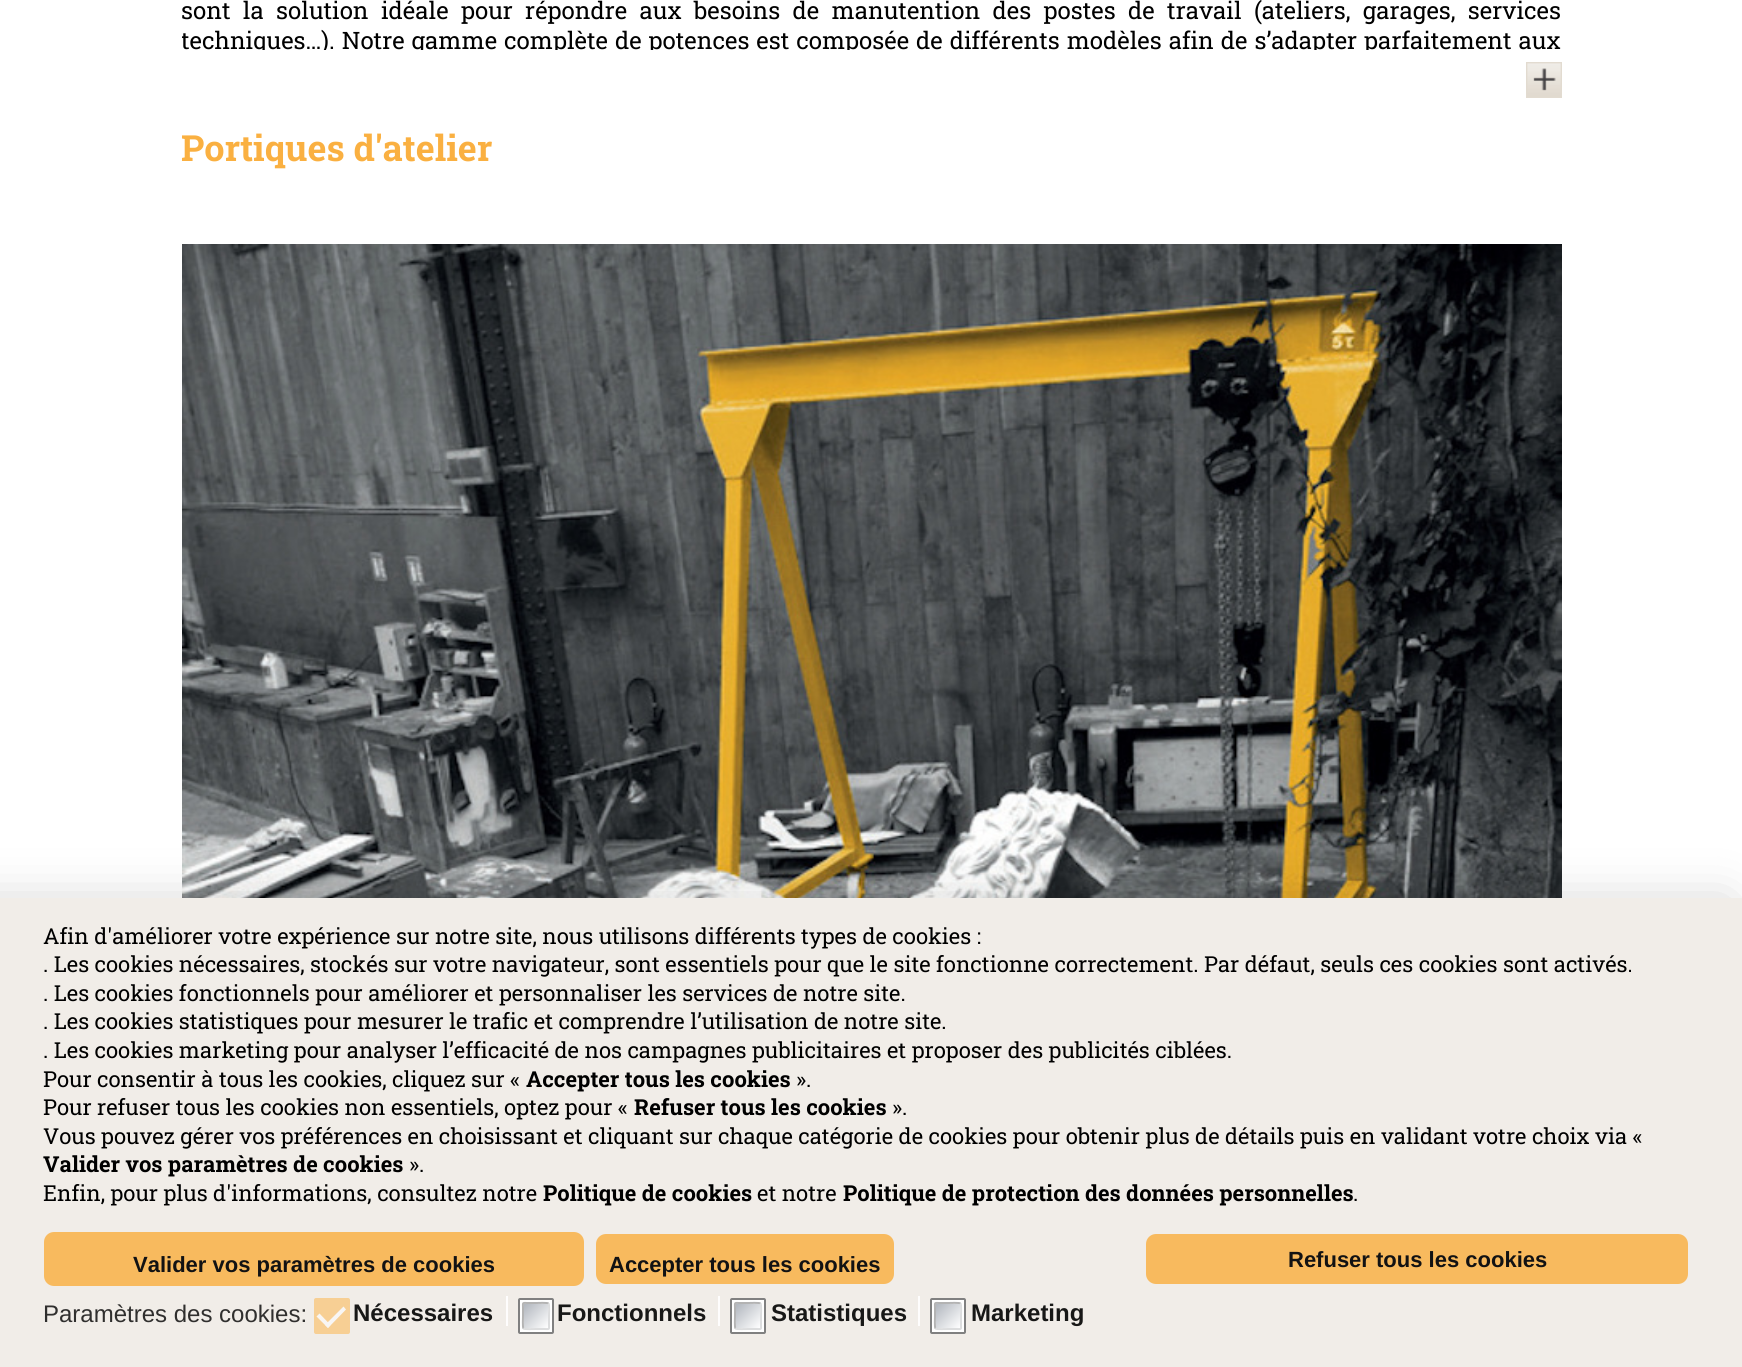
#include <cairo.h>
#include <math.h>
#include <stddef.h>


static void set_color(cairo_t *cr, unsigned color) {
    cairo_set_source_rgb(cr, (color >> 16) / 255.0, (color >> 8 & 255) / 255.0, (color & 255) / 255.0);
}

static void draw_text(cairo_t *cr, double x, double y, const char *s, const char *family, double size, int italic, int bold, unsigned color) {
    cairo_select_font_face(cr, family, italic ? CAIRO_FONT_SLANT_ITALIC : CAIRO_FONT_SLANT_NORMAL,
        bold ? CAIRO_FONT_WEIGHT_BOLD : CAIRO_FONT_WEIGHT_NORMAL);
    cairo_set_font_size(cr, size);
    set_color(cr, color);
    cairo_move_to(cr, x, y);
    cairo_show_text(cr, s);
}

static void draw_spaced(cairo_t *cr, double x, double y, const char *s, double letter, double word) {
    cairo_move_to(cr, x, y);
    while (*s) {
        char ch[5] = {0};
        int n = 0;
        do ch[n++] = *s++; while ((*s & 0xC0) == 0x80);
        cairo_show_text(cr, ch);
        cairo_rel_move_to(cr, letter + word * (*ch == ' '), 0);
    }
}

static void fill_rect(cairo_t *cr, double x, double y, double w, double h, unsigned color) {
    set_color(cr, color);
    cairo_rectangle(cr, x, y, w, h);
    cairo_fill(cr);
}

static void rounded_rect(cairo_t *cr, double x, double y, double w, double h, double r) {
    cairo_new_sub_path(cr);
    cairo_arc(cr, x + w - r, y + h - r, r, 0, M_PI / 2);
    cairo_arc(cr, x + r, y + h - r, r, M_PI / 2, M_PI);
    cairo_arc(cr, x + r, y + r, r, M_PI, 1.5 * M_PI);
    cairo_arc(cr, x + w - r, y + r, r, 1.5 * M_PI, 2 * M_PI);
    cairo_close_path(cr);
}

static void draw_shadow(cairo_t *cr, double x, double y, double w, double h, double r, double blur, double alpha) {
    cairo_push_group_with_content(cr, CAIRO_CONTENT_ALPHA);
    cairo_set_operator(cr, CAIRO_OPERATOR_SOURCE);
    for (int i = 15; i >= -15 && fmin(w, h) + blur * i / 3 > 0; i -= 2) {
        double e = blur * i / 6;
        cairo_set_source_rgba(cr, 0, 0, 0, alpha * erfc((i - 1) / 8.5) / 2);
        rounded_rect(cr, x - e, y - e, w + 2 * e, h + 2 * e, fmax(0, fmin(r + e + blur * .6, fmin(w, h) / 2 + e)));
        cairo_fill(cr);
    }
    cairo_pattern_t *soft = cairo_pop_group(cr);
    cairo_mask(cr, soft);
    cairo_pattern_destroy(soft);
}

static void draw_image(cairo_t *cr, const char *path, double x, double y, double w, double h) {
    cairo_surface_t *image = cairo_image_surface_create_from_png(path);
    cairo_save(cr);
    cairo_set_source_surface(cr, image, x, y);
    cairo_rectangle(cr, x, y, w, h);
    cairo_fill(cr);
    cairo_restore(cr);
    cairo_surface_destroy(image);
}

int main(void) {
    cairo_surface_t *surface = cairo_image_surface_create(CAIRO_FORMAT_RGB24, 1742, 1367);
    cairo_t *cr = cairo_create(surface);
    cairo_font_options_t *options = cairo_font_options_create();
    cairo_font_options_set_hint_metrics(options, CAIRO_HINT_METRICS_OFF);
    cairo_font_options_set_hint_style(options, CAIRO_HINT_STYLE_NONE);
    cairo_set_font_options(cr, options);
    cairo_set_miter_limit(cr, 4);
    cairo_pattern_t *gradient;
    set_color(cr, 0xFFFFFF);
    cairo_paint(cr);
    cairo_select_font_face(cr, "Roboto Slab", CAIRO_FONT_SLANT_NORMAL, CAIRO_FONT_WEIGHT_NORMAL);
    cairo_set_font_size(cr, 24);
    set_color(cr, 0x000000);
    draw_spaced(cr, 181, 19, "sont la solution idéale pour répondre aux besoins de manutention des postes de travail (ateliers, garages, services", 0, 6.4);
    cairo_save(cr);
    cairo_rectangle(cr, 182, 0, 1380, 50);
    cairo_clip(cr);
    draw_spaced(cr, 181, 49, "techniques…). Notre gamme complète de potences est composée de différents modèles afin de s’adapter parfaitement aux", 0, 1);
    cairo_restore(cr);
    draw_image(cr, "assets/img1.png", 1526, 62, 36, 36);
    draw_text(cr, 181, 161, "Portiques d'atelier", "Roboto Slab", 36, 0, 1, 0xFAB041);
    draw_image(cr, "assets/img2.png", 182, 244, 1380, 654);
    set_color(cr, 0x000000);
    draw_shadow(cr, -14, 904, 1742, 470, 0, 26, 0.19);
    fill_rect(cr, 0, 898, 1742, 469, 0xF1EDE8);
    draw_text(cr, 43, 944, "Afin d'améliorer votre expérience sur notre site, nous utilisons différents types de cookies :", "Roboto Slab", 22, 0, 0, 0x000000);
    draw_text(cr, 43, 972, ". Les cookies nécessaires, stockés sur votre navigateur, sont essentiels pour que le site fonctionne correctement. Par défaut, seuls ces cookies sont activés.", "Roboto Slab", 22, 0, 0, 0x000000);
    draw_text(cr, 43, 1001, ". Les cookies fonctionnels pour améliorer et personnaliser les services de notre site.", "Roboto Slab", 22, 0, 0, 0x000000);
    draw_text(cr, 43, 1029, ". Les cookies statistiques pour mesurer le trafic et comprendre l’utilisation de notre site.", "Roboto Slab", 22, 0, 0, 0x000000);
    draw_text(cr, 43, 1058, ". Les cookies marketing pour analyser l’efficacité de nos campagnes publicitaires et proposer des publicités ciblées.", "Roboto Slab", 22, 0, 0, 0x000000);
    draw_text(cr, 43, 1087, "Pour consentir à tous les cookies, cliquez sur «", "Roboto Slab", 22, 0, 0, 0x000000);
    draw_text(cr, 526, 1087, "Accepter tous les cookies", "Roboto Slab", 22, 0, 1, 0x000000);
    draw_text(cr, 796, 1087, "».", "Roboto Slab", 22, 0, 0, 0x000000);
    draw_text(cr, 43, 1115, "Pour refuser tous les cookies non essentiels, optez pour «", "Roboto Slab", 22, 0, 0, 0x000000);
    draw_text(cr, 634, 1115, "Refuser tous les cookies", "Roboto Slab", 22, 0, 1, 0x000000);
    draw_text(cr, 892, 1115, "».", "Roboto Slab", 22, 0, 0, 0x000000);
    draw_text(cr, 43, 1144, "Vous pouvez gérer vos préférences en choisissant et cliquant sur chaque catégorie de cookies pour obtenir plus de détails puis en validant votre choix via «", "Roboto Slab", 22, 0, 0, 0x000000);
    draw_text(cr, 43, 1172, "Valider vos paramètres de cookies", "Roboto Slab", 22, 0, 1, 0x000000);
    draw_text(cr, 409, 1172, "».", "Roboto Slab", 22, 0, 0, 0x000000);
    draw_text(cr, 43, 1201, "Enfin, pour plus d'informations, consultez notre", "Roboto Slab", 22, 0, 0, 0x000000);
    draw_text(cr, 543, 1201, "Politique de cookies", "Roboto Slab", 22, 0, 1, 0x000000);
    draw_text(cr, 757, 1201, "et notre", "Roboto Slab", 22, 0, 0, 0x000000);
    draw_text(cr, 843, 1201, "Politique de protection des données personnelles", "Roboto Slab", 22, 0, 1, 0x000000);
    draw_text(cr, 1353, 1201, ".", "Roboto Slab", 22, 0, 0, 0x000000);
    set_color(cr, 0xF8BA5E);
    rounded_rect(cr, 44, 1232, 540, 54, 10);
    cairo_fill(cr);
    draw_text(cr, 133, 1272, "Valider vos paramètres de cookies", "Liberation Sans", 22, 0, 1, 0x121213);
    set_color(cr, 0xF8BA5E);
    rounded_rect(cr, 596, 1234, 298, 50, 10);
    cairo_fill(cr);
    draw_text(cr, 609, 1272, "Accepter tous les cookies", "Liberation Sans", 22, 0, 1, 0x121213);
    set_color(cr, 0xF8BA5E);
    rounded_rect(cr, 1146, 1234, 542, 50, 10);
    cairo_fill(cr);
    draw_text(cr, 1288, 1267, "Refuser tous les cookies", "Liberation Sans", 22, 0, 1, 0x121213);
    draw_text(cr, 43, 1322, "Paramètres des cookies:", "Liberation Sans", 24, 0, 0, 0x302F2E);
    set_color(cr, 0xF7CF94);
    rounded_rect(cr, 315, 1299, 34, 34, 1);
    cairo_fill_preserve(cr);
    cairo_stroke(cr);
    set_color(cr, 0xF8F6F4);
    cairo_new_path(cr);
    cairo_move_to(cr, 343.5, 1306.5);
    cairo_line_to(cr, 346, 1309.5);
    cairo_line_to(cr, 328, 1328);
    cairo_line_to(cr, 325, 1325);
    cairo_close_path(cr);
    cairo_fill(cr);
    cairo_new_path(cr);
    cairo_move_to(cr, 319.5, 1313.5);
    cairo_line_to(cr, 330.5, 1325);
    cairo_line_to(cr, 328, 1328);
    cairo_line_to(cr, 316.5, 1316.5);
    cairo_close_path(cr);
    cairo_fill(cr);
    fill_rect(cr, 506, 1296, 2, 30, 0xFEFDFD);
    draw_text(cr, 353, 1321, "Nécessaires", "Liberation Sans", 24, 0, 1, 0x181817);
    set_color(cr, 0xFFFFFF);
    rounded_rect(cr, 519, 1299, 34, 34, 1);
    cairo_fill_preserve(cr);
    set_color(cr, 0x808080);
    cairo_stroke(cr);
    gradient = cairo_pattern_create_linear(524, 1304, 548, 1328);
    cairo_pattern_add_color_stop_rgba(gradient, 0, 0.694, 0.714, 0.745, 1);
    cairo_pattern_add_color_stop_rgba(gradient, 1, 1, 1, 1, 1);
    cairo_set_source(cr, gradient);
    cairo_pattern_destroy(gradient);
    cairo_rectangle(cr, 524, 1304, 24, 24);
    cairo_fill(cr);
    cairo_new_path(cr);
    cairo_move_to(cr, 548.5, 1303.5);
    cairo_curve_to(cr, 549.5, 1304, 549, 1314.5, 549, 1316);
    cairo_line_to(cr, 549, 1324);
    cairo_curve_to(cr, 549, 1330, 550, 1329, 544, 1329);
    cairo_line_to(cr, 536, 1329);
    cairo_curve_to(cr, 534.5, 1329, 524, 1329.5, 523.5, 1328.5);
    set_color(cr, 0xDCDDDE);
    cairo_stroke(cr);
    cairo_new_path(cr);
    cairo_move_to(cr, 523.5, 1328.5);
    cairo_curve_to(cr, 522.5, 1328, 523, 1317.5, 523, 1316);
    cairo_line_to(cr, 523, 1308);
    cairo_curve_to(cr, 523, 1302, 522, 1303, 528, 1303);
    cairo_line_to(cr, 536, 1303);
    cairo_curve_to(cr, 537.5, 1303, 548, 1302.5, 548.5, 1303.5);
    set_color(cr, 0xB3B3B3);
    cairo_stroke(cr);
    fill_rect(cr, 718, 1296, 2, 30, 0xFEFDFD);
    draw_text(cr, 557, 1321, "Fonctionnels", "Liberation Sans", 24, 0, 1, 0x181817);
    set_color(cr, 0xFFFFFF);
    rounded_rect(cr, 731, 1299, 34, 34, 1);
    cairo_fill_preserve(cr);
    set_color(cr, 0x808080);
    cairo_stroke(cr);
    gradient = cairo_pattern_create_linear(736, 1304, 760, 1328);
    cairo_pattern_add_color_stop_rgba(gradient, 0, 0.694, 0.714, 0.745, 1);
    cairo_pattern_add_color_stop_rgba(gradient, 1, 1, 1, 1, 1);
    cairo_set_source(cr, gradient);
    cairo_pattern_destroy(gradient);
    cairo_rectangle(cr, 736, 1304, 24, 24);
    cairo_fill(cr);
    cairo_new_path(cr);
    cairo_move_to(cr, 760.5, 1303.5);
    cairo_curve_to(cr, 761.5, 1304, 761, 1314.5, 761, 1316);
    cairo_line_to(cr, 761, 1324);
    cairo_curve_to(cr, 761, 1330, 762, 1329, 756, 1329);
    cairo_line_to(cr, 748, 1329);
    cairo_curve_to(cr, 746.5, 1329, 736, 1329.5, 735.5, 1328.5);
    set_color(cr, 0xDCDDDE);
    cairo_stroke(cr);
    cairo_new_path(cr);
    cairo_move_to(cr, 735.5, 1328.5);
    cairo_curve_to(cr, 734.5, 1328, 735, 1317.5, 735, 1316);
    cairo_line_to(cr, 735, 1308);
    cairo_curve_to(cr, 735, 1302, 734, 1303, 740, 1303);
    cairo_line_to(cr, 748, 1303);
    cairo_curve_to(cr, 749.5, 1303, 760, 1302.5, 760.5, 1303.5);
    set_color(cr, 0xB3B3B3);
    cairo_stroke(cr);
    fill_rect(cr, 918, 1296, 2, 30, 0xFEFDFD);
    draw_text(cr, 771, 1321, "Statistiques", "Liberation Sans", 24, 0, 1, 0x181817);
    set_color(cr, 0xFFFFFF);
    rounded_rect(cr, 931, 1299, 34, 34, 1);
    cairo_fill_preserve(cr);
    set_color(cr, 0x808080);
    cairo_stroke(cr);
    gradient = cairo_pattern_create_linear(936, 1304, 960, 1328);
    cairo_pattern_add_color_stop_rgba(gradient, 0, 0.694, 0.714, 0.745, 1);
    cairo_pattern_add_color_stop_rgba(gradient, 1, 1, 1, 1, 1);
    cairo_set_source(cr, gradient);
    cairo_pattern_destroy(gradient);
    cairo_rectangle(cr, 936, 1304, 24, 24);
    cairo_fill(cr);
    cairo_new_path(cr);
    cairo_move_to(cr, 960.5, 1303.5);
    cairo_curve_to(cr, 961.5, 1304, 961, 1314.5, 961, 1316);
    cairo_line_to(cr, 961, 1324);
    cairo_curve_to(cr, 961, 1330, 962, 1329, 956, 1329);
    cairo_line_to(cr, 948, 1329);
    cairo_curve_to(cr, 946.5, 1329, 936, 1329.5, 935.5, 1328.5);
    set_color(cr, 0xDCDDDE);
    cairo_stroke(cr);
    cairo_new_path(cr);
    cairo_move_to(cr, 935.5, 1328.5);
    cairo_curve_to(cr, 934.5, 1328, 935, 1317.5, 935, 1316);
    cairo_line_to(cr, 935, 1308);
    cairo_curve_to(cr, 935, 1302, 934, 1303, 940, 1303);
    cairo_line_to(cr, 948, 1303);
    cairo_curve_to(cr, 949.5, 1303, 960, 1302.5, 960.5, 1303.5);
    set_color(cr, 0xB3B3B3);
    cairo_stroke(cr);
    draw_text(cr, 971, 1321, "Marketing", "Liberation Sans", 24, 0, 1, 0x181817);
    cairo_surface_write_to_png(surface, "output.png");
    cairo_font_options_destroy(options);
    cairo_destroy(cr);
    cairo_surface_destroy(surface);
    return 0;
}
